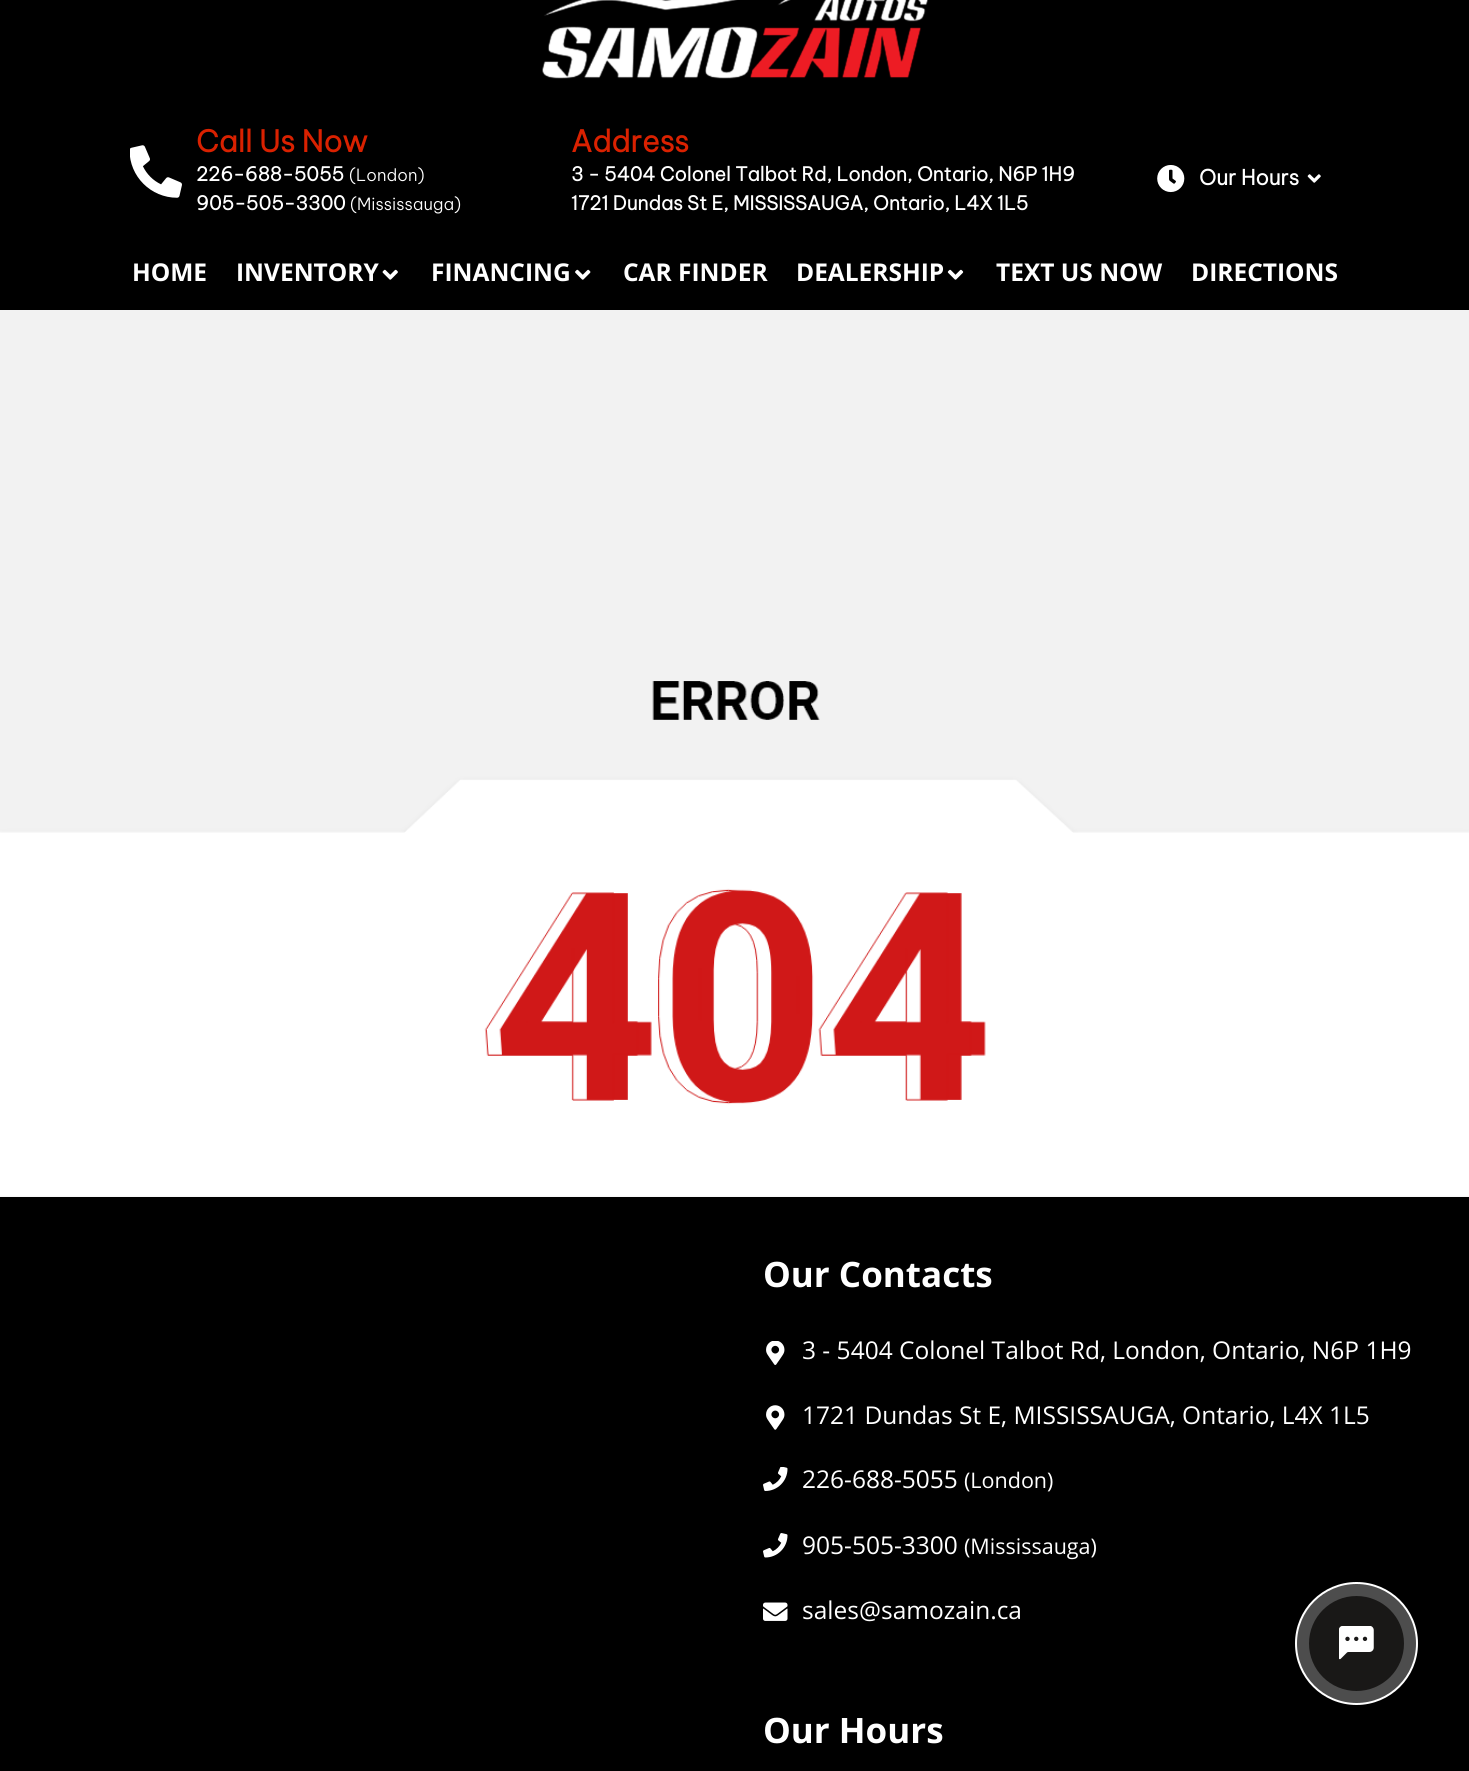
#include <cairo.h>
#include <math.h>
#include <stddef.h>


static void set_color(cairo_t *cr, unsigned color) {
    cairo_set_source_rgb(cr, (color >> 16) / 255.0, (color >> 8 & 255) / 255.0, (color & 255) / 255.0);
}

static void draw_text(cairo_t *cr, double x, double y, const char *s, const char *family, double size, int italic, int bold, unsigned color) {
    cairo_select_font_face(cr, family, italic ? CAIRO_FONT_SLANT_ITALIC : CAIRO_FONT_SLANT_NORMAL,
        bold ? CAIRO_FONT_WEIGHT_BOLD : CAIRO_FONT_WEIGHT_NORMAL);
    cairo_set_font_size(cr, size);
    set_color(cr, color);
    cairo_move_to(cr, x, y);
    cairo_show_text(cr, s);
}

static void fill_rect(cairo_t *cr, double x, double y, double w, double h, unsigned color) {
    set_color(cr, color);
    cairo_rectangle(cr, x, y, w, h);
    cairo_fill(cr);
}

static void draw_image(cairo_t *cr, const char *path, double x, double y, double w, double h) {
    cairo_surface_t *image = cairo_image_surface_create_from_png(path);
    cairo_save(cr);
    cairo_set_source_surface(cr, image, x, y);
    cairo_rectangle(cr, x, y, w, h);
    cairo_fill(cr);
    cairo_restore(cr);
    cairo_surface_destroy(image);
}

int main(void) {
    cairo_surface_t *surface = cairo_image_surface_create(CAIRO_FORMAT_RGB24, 1469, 1771);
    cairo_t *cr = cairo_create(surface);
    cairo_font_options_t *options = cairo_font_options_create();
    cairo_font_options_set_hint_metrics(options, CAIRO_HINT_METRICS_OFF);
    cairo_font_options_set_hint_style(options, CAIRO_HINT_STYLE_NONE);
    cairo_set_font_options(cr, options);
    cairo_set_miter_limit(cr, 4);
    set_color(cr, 0x000000);
    cairo_paint(cr);
    draw_image(cr, "assets/img1.png", 542, 0, 386, 79);
    draw_image(cr, "assets/img2.png", 130, 145, 52, 53);
    draw_text(cr, 196, 152, "Call Us Now", "Be Vietnam Pro", 29.75, 0, 1, 0xDA2100);
    draw_text(cr, 196, 181, "226-688-5055", "Be Vietnam Pro", 19.25, 0, 1, 0xFFFFFF);
    draw_text(cr, 349, 181, "(London)", "Be Vietnam Pro Light", 16.75, 0, 0, 0xFFFFFF);
    draw_text(cr, 196, 210, "905-505-3300", "Be Vietnam Pro", 19.25, 0, 1, 0xFFFFFF);
    draw_text(cr, 350, 210, "(Mississauga)", "Be Vietnam Pro Light", 16.75, 0, 0, 0xFFFFFF);
    draw_text(cr, 571, 152, "Address", "Be Vietnam Pro", 29.75, 0, 1, 0xDA2100);
    draw_text(cr, 571, 181, "3 - 5404 Colonel Talbot Rd, London, Ontario, N6P 1H9", "Be Vietnam Pro", 19.25, 0, 1, 0xFFFFFF);
    draw_text(cr, 571, 210, "1721 Dundas St E, MISSISSAUGA, Ontario, L4X 1L5", "Be Vietnam Pro", 19.25, 0, 1, 0xFFFFFF);
    draw_image(cr, "assets/img3.png", 1157, 165, 28, 28);
    draw_text(cr, 1199, 185, "Our Hours", "Be Vietnam Pro", 21, 0, 1, 0xFFFFFF);
    draw_image(cr, "assets/img4.png", 1307, 174, 14, 9);
    draw_text(cr, 132, 281, "HOME", "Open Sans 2", 24.5, 0, 1, 0xFFFFFF);
    draw_text(cr, 236, 281, "INVENTORY", "Open Sans 2", 24.5, 0, 1, 0xFFFFFF);
    draw_image(cr, "assets/img5.png", 382, 269, 16, 11);
    draw_text(cr, 431, 281, "FINANCING", "Open Sans 2", 24.5, 0, 1, 0xFFFFFF);
    draw_image(cr, "assets/img6.png", 575, 269, 16, 11);
    draw_text(cr, 623, 281, "CAR FINDER", "Open Sans 2", 24.5, 0, 1, 0xFFFFFF);
    draw_text(cr, 796, 281, "DEALERSHIP", "Open Sans 2", 24.5, 0, 1, 0xFFFFFF);
    draw_image(cr, "assets/img7.png", 947, 269, 17, 11);
    draw_text(cr, 996, 281, "TEXT US NOW", "Open Sans 2", 24.5, 0, 1, 0xFFFFFF);
    draw_text(cr, 1191, 281, "DIRECTIONS", "Open Sans 2", 24.5, 0, 1, 0xFFFFFF);
    fill_rect(cr, 0, 310, 1469, 887, 0xF2F2F2);
    draw_image(cr, "assets/img8.png", 0, 681, 1469, 516);
    draw_text(cr, 763, 1287, "Our Contacts", "Open Sans", 35, 0, 1, 0xFFFFFF);
    draw_image(cr, "assets/img9.png", 766, 1341, 19, 24);
    draw_text(cr, 802, 1359, "3 - 5404 Colonel Talbot Rd, London, Ontario, N6P 1H9", "Open Sans", 24.5, 0, 0, 0xFFFFFF);
    draw_image(cr, "assets/img10.png", 766, 1405, 19, 25);
    draw_text(cr, 802, 1424, "1721 Dundas St E, MISSISSAUGA, Ontario, L4X 1L5", "Open Sans", 24.5, 0, 0, 0xFFFFFF);
    draw_image(cr, "assets/img11.png", 763, 1467, 25, 24);
    draw_text(cr, 802, 1488, "226-688-5055", "Open Sans", 24.5, 0, 0, 0xFFFFFF);
    draw_text(cr, 964, 1488, "(London)", "Open Sans", 21.5, 0, 0, 0xFFFFFF);
    draw_image(cr, "assets/img12.png", 763, 1533, 25, 25);
    draw_text(cr, 802, 1554, "905-505-3300", "Open Sans", 24.5, 0, 0, 0xFFFFFF);
    draw_text(cr, 964, 1554, "(Mississauga)", "Open Sans", 21.5, 0, 0, 0xFFFFFF);
    draw_image(cr, "assets/img13.png", 763, 1602, 25, 19);
    draw_text(cr, 802, 1619, "sales@samozain.ca", "Open Sans", 24.5, 0, 0, 0xFFFFFF);
    draw_text(cr, 763, 1743, "Our Hours", "Open Sans", 35, 0, 1, 0xFFFFFF);
    set_color(cr, 0x4D4D4D);
    cairo_new_path(cr);
    cairo_arc(cr, 1356.5, 1643.5, 60.5, 0, 2 * M_PI);
    cairo_fill_preserve(cr);
    set_color(cr, 0xFFFFFF);
    cairo_stroke(cr);
    set_color(cr, 0x191817);
    cairo_arc(cr, 1356.5, 1643.5, 47.5, 0, 2 * M_PI);
    cairo_fill(cr);
    draw_image(cr, "assets/img14.png", 1339, 1626, 35, 34);
    cairo_surface_write_to_png(surface, "output.png");
    cairo_font_options_destroy(options);
    cairo_destroy(cr);
    cairo_surface_destroy(surface);
    return 0;
}
